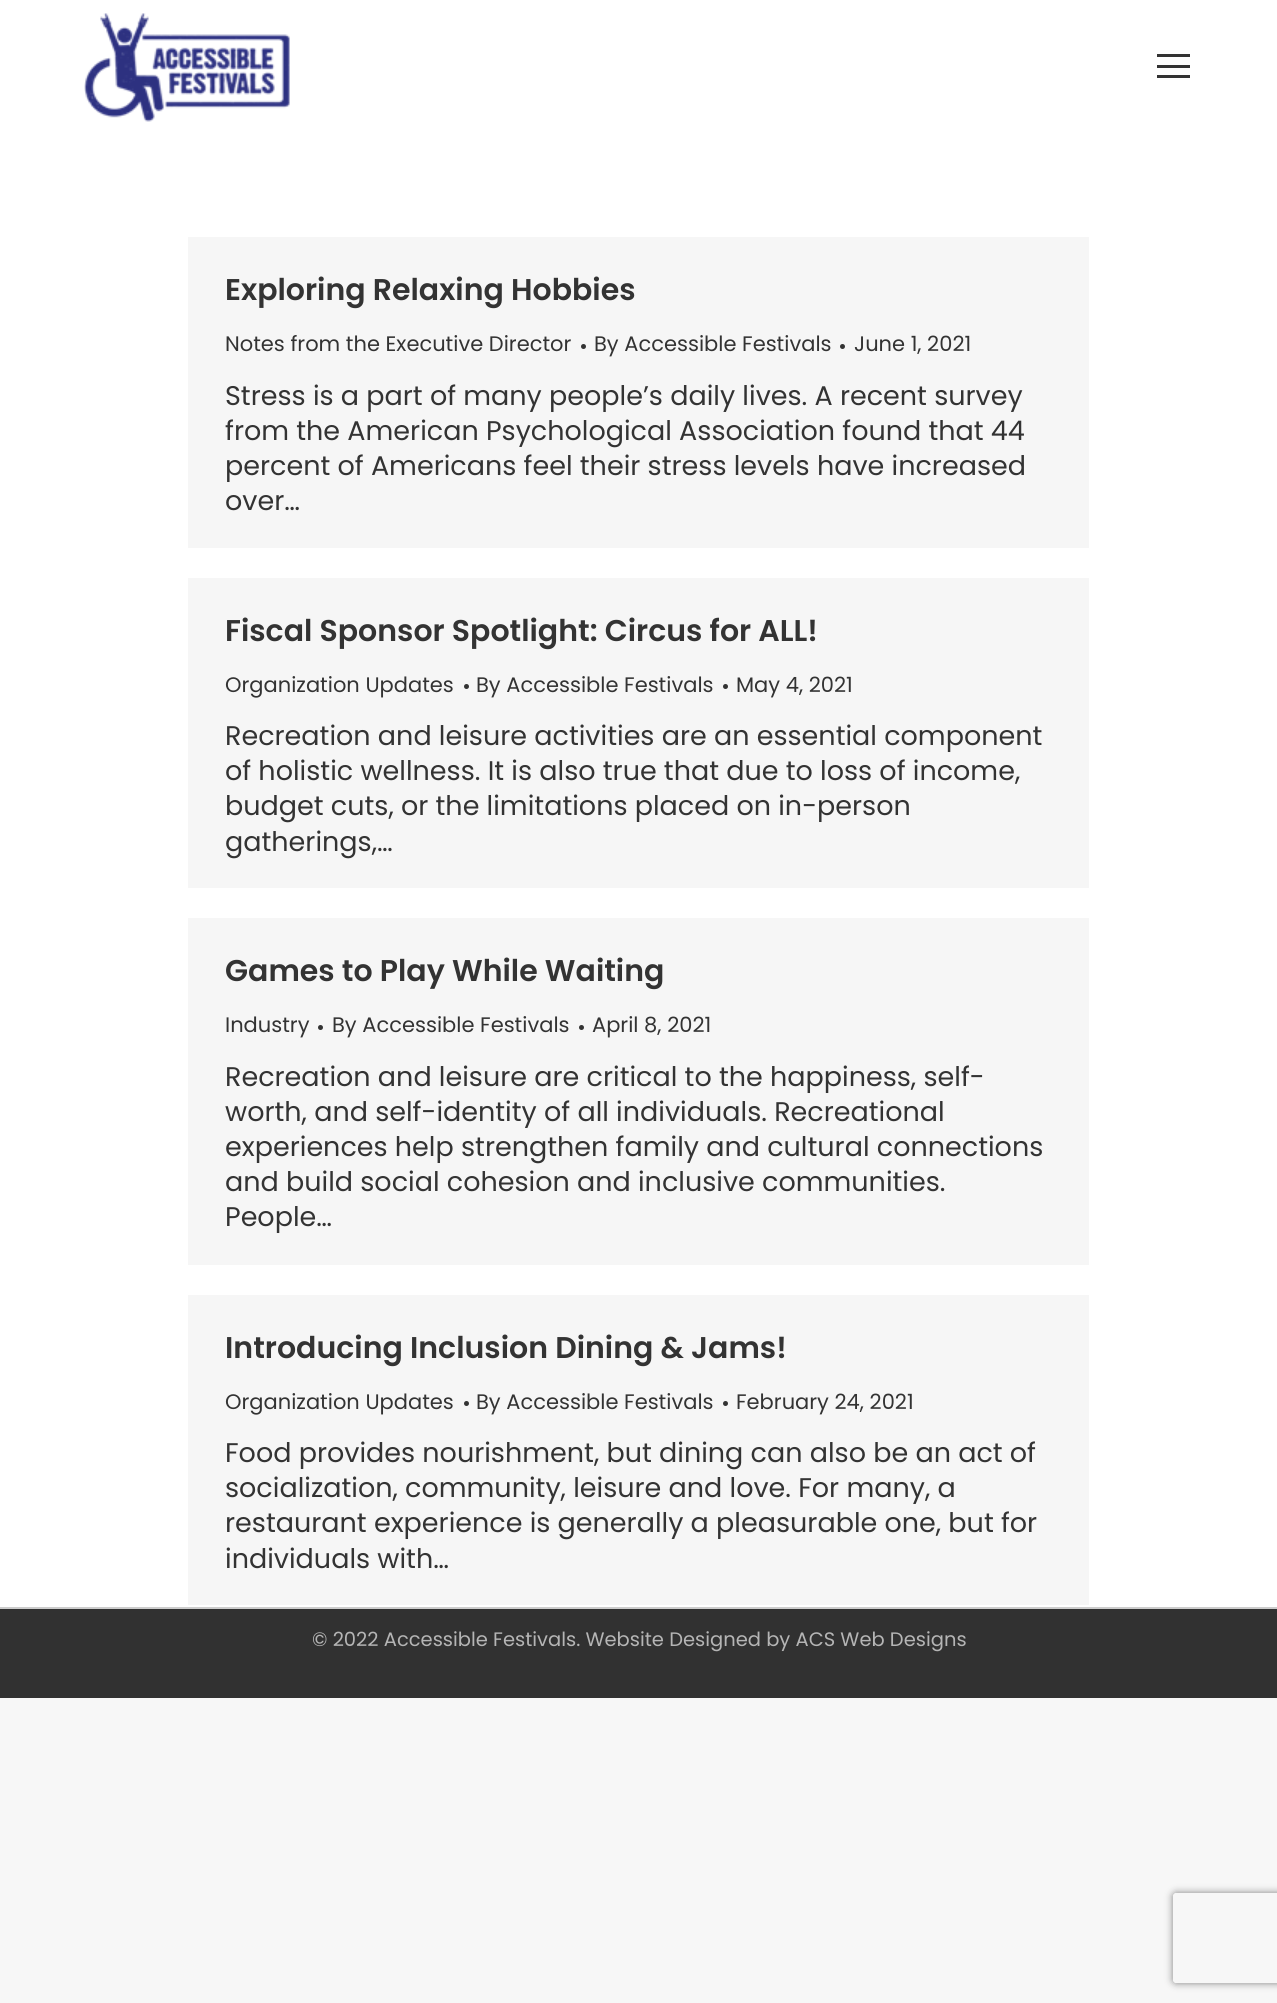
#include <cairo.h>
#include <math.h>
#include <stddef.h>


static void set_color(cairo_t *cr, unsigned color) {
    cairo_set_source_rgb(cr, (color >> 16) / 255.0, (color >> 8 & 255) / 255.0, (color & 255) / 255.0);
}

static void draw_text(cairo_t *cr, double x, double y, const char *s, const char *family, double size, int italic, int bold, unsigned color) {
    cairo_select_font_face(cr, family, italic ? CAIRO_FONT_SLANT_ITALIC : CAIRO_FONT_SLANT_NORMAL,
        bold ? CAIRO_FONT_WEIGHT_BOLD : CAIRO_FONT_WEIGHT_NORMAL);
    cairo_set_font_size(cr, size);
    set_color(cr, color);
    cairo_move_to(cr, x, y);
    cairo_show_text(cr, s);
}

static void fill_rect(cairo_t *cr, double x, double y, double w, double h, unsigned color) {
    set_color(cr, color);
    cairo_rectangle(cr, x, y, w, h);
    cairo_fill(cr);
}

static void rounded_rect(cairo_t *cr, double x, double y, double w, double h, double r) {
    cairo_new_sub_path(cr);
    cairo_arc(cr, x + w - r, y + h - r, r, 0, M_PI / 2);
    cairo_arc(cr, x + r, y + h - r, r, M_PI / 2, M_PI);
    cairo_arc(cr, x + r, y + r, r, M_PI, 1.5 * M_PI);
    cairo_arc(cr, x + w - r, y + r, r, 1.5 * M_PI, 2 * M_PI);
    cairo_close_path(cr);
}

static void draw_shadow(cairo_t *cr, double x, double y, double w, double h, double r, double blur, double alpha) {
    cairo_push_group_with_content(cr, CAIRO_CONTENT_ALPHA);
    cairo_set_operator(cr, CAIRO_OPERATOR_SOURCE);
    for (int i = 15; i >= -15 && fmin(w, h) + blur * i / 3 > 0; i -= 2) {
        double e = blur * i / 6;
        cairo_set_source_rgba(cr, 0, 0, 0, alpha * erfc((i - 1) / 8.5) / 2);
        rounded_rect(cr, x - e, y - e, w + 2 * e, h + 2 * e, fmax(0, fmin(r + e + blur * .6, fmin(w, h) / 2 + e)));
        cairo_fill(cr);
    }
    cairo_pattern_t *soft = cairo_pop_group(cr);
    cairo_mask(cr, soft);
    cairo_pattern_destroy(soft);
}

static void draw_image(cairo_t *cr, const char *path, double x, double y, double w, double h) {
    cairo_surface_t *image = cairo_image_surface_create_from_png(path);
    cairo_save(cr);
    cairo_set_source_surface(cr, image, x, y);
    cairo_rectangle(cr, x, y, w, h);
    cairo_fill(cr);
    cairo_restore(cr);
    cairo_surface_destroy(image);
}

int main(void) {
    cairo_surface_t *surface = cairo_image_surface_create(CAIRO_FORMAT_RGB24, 1277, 2003);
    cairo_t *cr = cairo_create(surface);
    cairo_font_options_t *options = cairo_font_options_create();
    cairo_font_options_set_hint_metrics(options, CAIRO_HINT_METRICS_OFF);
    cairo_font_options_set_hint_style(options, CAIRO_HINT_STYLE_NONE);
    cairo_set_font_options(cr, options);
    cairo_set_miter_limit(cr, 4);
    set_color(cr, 0xF7F7F7);
    cairo_paint(cr);
    fill_rect(cr, 0, 0, 1277, 1607, 0xFFFFFF);
    draw_image(cr, "assets/img1.png", 84, 13, 206, 109);
    fill_rect(cr, 1157, 54, 33, 3, 0x333333);
    fill_rect(cr, 1157, 65, 33, 3, 0x333333);
    fill_rect(cr, 1157, 75, 33, 3, 0x333333);
    fill_rect(cr, 188, 237, 901, 311, 0xF6F6F6);
    draw_text(cr, 225, 300, "Exploring Relaxing Hobbies", "Poppins SemiBold", 30, 0, 0, 0x333333);
    draw_text(cr, 225, 351, "Notes from the Executive Director", "Poppins", 21, 0, 0, 0x333333);
    cairo_new_path(cr);
    cairo_arc(cr, 583.5, 346.5, 2.5, 0, 2 * M_PI);
    cairo_fill(cr);
    draw_text(cr, 594, 351, "By Accessible Festivals", "Poppins", 21, 0, 0, 0x333333);
    cairo_new_path(cr);
    cairo_arc(cr, 842.5, 346.5, 2.5, 0, 2 * M_PI);
    cairo_fill(cr);
    draw_text(cr, 854, 351, "June 1, 2021", "Poppins", 21, 0, 0, 0x333333);
    draw_text(cr, 225, 405, "Stress is a part of many people’s daily lives. A recent survey", "Poppins", 27, 0, 0, 0x333333);
    draw_text(cr, 225, 440, "from the American Psychological Association found that 44", "Poppins", 27, 0, 0, 0x333333);
    draw_text(cr, 225, 475, "percent of Americans feel their stress levels have increased", "Poppins", 27, 0, 0, 0x333333);
    draw_text(cr, 225, 510, "over…", "Poppins", 27, 0, 0, 0x333333);
    fill_rect(cr, 188, 578, 901, 310, 0xF6F6F6);
    draw_text(cr, 225, 641, "Fiscal Sponsor Spotlight: Circus for ALL!", "Poppins SemiBold", 30, 0, 0, 0x333333);
    draw_text(cr, 225, 692, "Organization Updates", "Poppins", 21, 0, 0, 0x333333);
    cairo_new_path(cr);
    cairo_arc(cr, 466.5, 686.5, 2.5, 0, 2 * M_PI);
    cairo_fill(cr);
    draw_text(cr, 476, 692, "By Accessible Festivals", "Poppins", 21, 0, 0, 0x333333);
    cairo_new_path(cr);
    cairo_arc(cr, 725.5, 686.5, 2.5, 0, 2 * M_PI);
    cairo_fill(cr);
    draw_text(cr, 736, 692, "May 4, 2021", "Poppins", 21, 0, 0, 0x333333);
    draw_text(cr, 225, 745, "Recreation and leisure activities are an essential component", "Poppins", 27, 0, 0, 0x333333);
    draw_text(cr, 225, 780, "of holistic wellness. It is also true that due to loss of income,", "Poppins", 27, 0, 0, 0x333333);
    draw_text(cr, 225, 815, "budget cuts, or the limitations placed on in-person", "Poppins", 27, 0, 0, 0x333333);
    draw_text(cr, 225, 851, "gatherings,…", "Poppins", 27, 0, 0, 0x333333);
    fill_rect(cr, 188, 918, 901, 347, 0xF6F6F6);
    draw_text(cr, 225, 981, "Games to Play While Waiting", "Poppins SemiBold", 30, 0, 0, 0x333333);
    draw_text(cr, 225, 1032, "Industry", "Poppins", 21, 0, 0, 0x333333);
    cairo_new_path(cr);
    cairo_arc(cr, 320.5, 1027.5, 2.5, 0, 2 * M_PI);
    cairo_fill(cr);
    draw_text(cr, 332, 1032, "By Accessible Festivals", "Poppins", 21, 0, 0, 0x333333);
    cairo_new_path(cr);
    cairo_arc(cr, 581.5, 1027.5, 2.5, 0, 2 * M_PI);
    cairo_fill(cr);
    draw_text(cr, 592, 1032, "April 8, 2021", "Poppins", 21, 0, 0, 0x333333);
    draw_text(cr, 225, 1086, "Recreation and leisure are critical to the happiness, self-", "Poppins", 27, 0, 0, 0x333333);
    draw_text(cr, 225, 1121, "worth, and self-identity of all individuals. Recreational", "Poppins", 27, 0, 0, 0x333333);
    draw_text(cr, 225, 1156, "experiences help strengthen family and cultural connections", "Poppins", 27, 0, 0, 0x333333);
    draw_text(cr, 225, 1191, "and build social cohesion and inclusive communities.", "Poppins", 27, 0, 0, 0x333333);
    draw_text(cr, 225, 1226, "People…", "Poppins", 27, 0, 0, 0x333333);
    fill_rect(cr, 188, 1295, 901, 310, 0xF6F6F6);
    draw_text(cr, 225, 1358, "Introducing Inclusion Dining & Jams!", "Poppins SemiBold", 30, 0, 0, 0x333333);
    draw_text(cr, 225, 1409, "Organization Updates", "Poppins", 21, 0, 0, 0x333333);
    cairo_new_path(cr);
    cairo_arc(cr, 466.5, 1403.5, 2.5, 0, 2 * M_PI);
    cairo_fill(cr);
    draw_text(cr, 476, 1409, "By Accessible Festivals", "Poppins", 21, 0, 0, 0x333333);
    cairo_new_path(cr);
    cairo_arc(cr, 725.5, 1403.5, 2.5, 0, 2 * M_PI);
    cairo_fill(cr);
    draw_text(cr, 736, 1409, "February 24, 2021", "Poppins", 21, 0, 0, 0x333333);
    draw_text(cr, 225, 1462, "Food provides nourishment, but dining can also be an act of", "Poppins", 27, 0, 0, 0x333333);
    draw_text(cr, 225, 1497, "socialization, community, leisure and love. For many, a", "Poppins", 27, 0, 0, 0x333333);
    draw_text(cr, 225, 1532, "restaurant experience is generally a pleasurable one, but for", "Poppins", 27, 0, 0, 0x333333);
    draw_text(cr, 225, 1568, "individuals with…", "Poppins", 27, 0, 0, 0x333333);
    fill_rect(cr, 0, 1609, 1277, 89, 0x313131);
    fill_rect(cr, 0, 1607, 1277, 2, 0xCCCCCC);
    draw_text(cr, 312, 1646, "© 2022 Accessible Festivals. Website Designed by ACS Web Designs", "Poppins", 19.5, 0, 0, 0xB5B5B5);
    cairo_save(cr);
    cairo_set_fill_rule(cr, CAIRO_FILL_RULE_EVEN_ODD);
    cairo_new_path(cr);
    cairo_move_to(cr, 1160, 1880);
    cairo_line_to(cr, 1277, 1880);
    cairo_line_to(cr, 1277, 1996);
    cairo_line_to(cr, 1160, 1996);
    cairo_close_path(cr);
    cairo_move_to(cr, 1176, 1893);
    cairo_line_to(cr, 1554, 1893);
    cairo_curve_to(cr, 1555.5, 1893, 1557, 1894.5, 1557, 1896);
    cairo_line_to(cr, 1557, 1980);
    cairo_curve_to(cr, 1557, 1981.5, 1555.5, 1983, 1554, 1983);
    cairo_line_to(cr, 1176, 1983);
    cairo_curve_to(cr, 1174.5, 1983, 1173, 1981.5, 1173, 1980);
    cairo_line_to(cr, 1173, 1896);
    cairo_curve_to(cr, 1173, 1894.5, 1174.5, 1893, 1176, 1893);
    cairo_close_path(cr);
    cairo_clip(cr);
    set_color(cr, 0x808080);
    draw_shadow(cr, 1173, 1893, 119, 90, 3, 4, 1);
    cairo_restore(cr);
    cairo_surface_write_to_png(surface, "output.png");
    cairo_font_options_destroy(options);
    cairo_destroy(cr);
    cairo_surface_destroy(surface);
    return 0;
}
